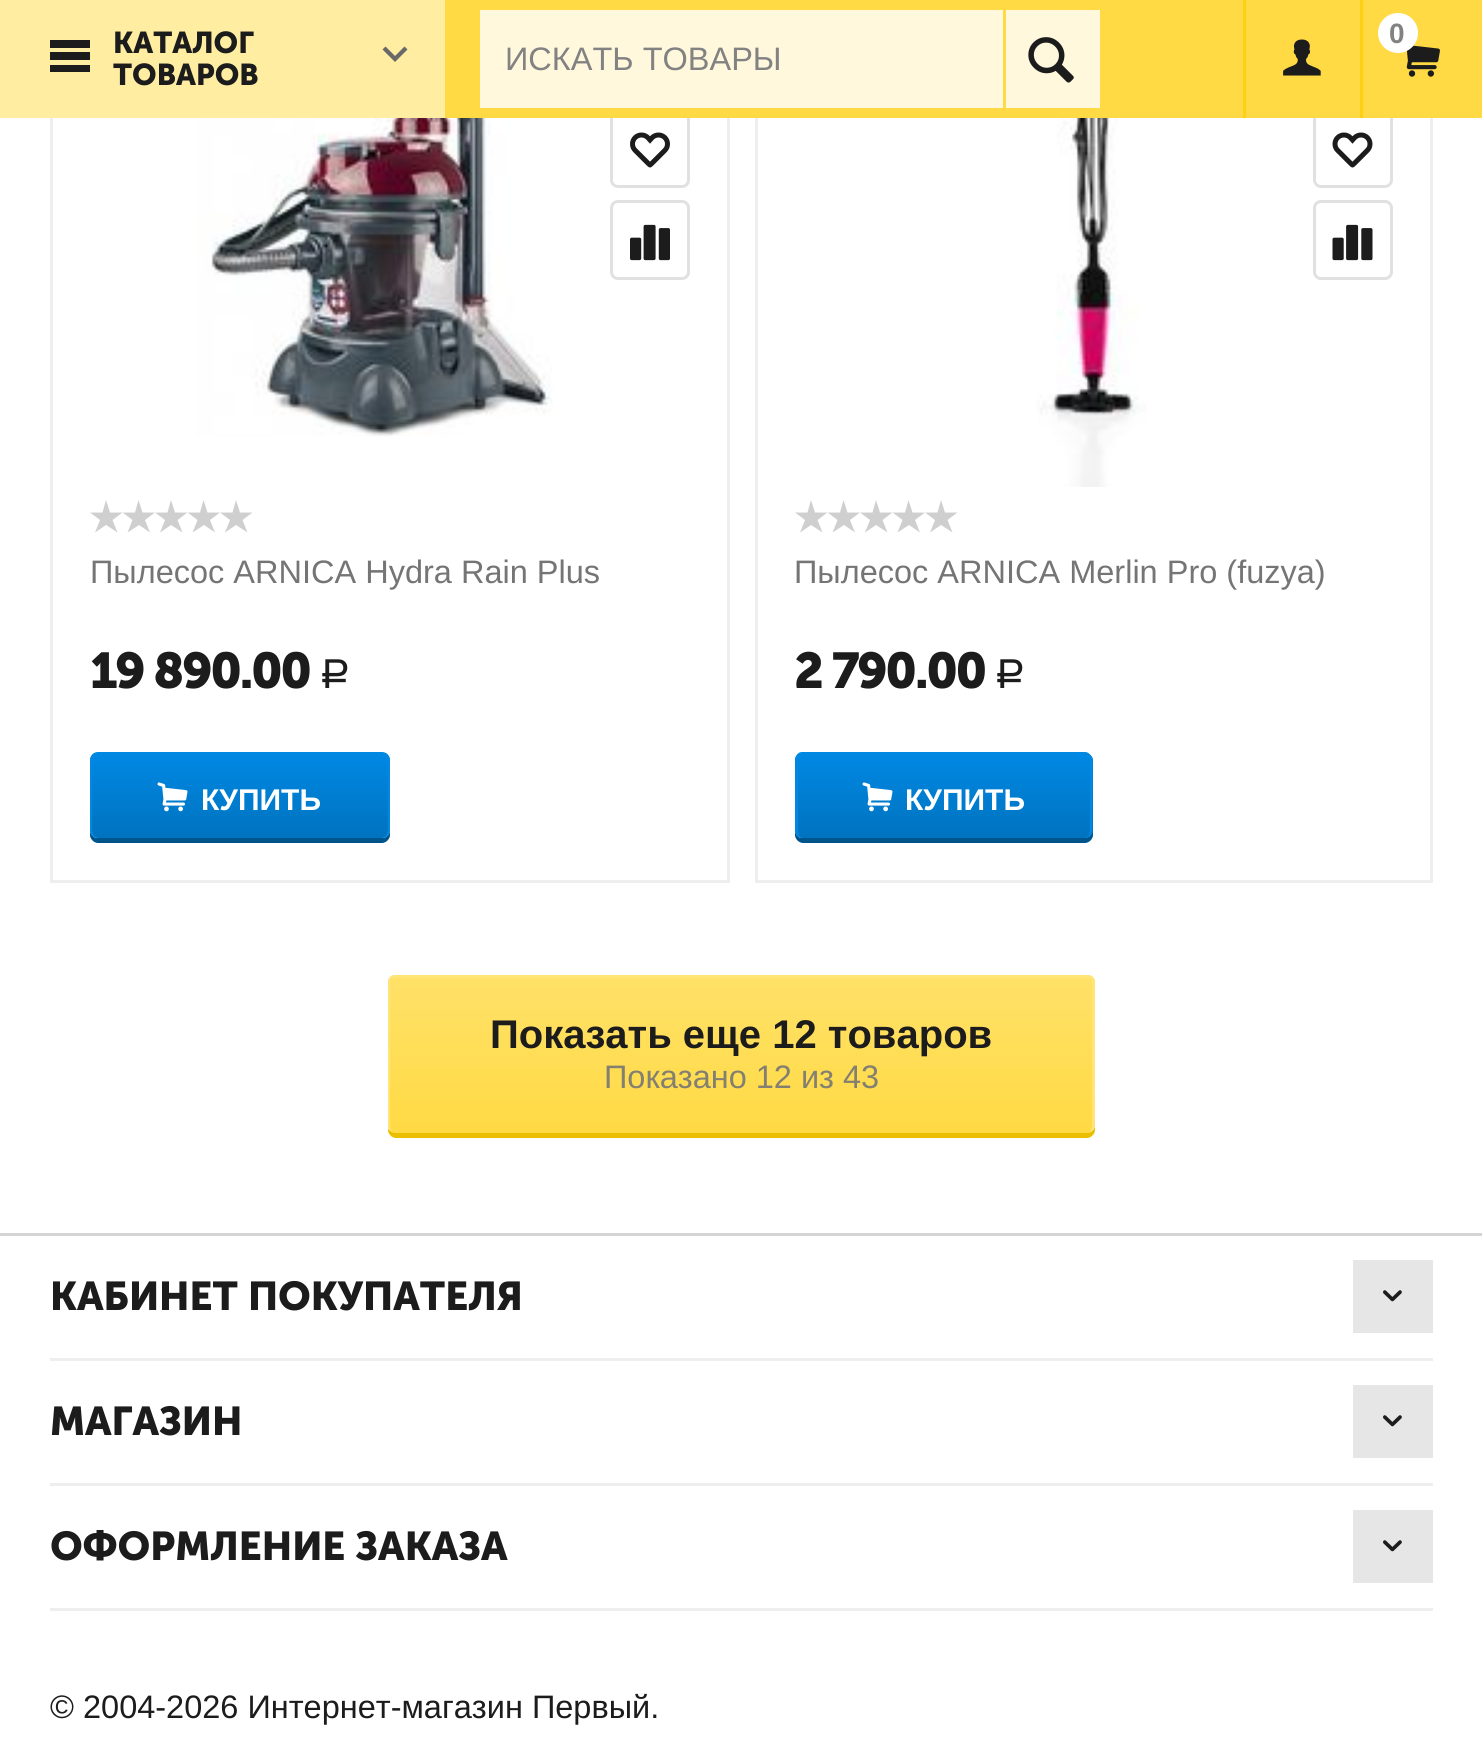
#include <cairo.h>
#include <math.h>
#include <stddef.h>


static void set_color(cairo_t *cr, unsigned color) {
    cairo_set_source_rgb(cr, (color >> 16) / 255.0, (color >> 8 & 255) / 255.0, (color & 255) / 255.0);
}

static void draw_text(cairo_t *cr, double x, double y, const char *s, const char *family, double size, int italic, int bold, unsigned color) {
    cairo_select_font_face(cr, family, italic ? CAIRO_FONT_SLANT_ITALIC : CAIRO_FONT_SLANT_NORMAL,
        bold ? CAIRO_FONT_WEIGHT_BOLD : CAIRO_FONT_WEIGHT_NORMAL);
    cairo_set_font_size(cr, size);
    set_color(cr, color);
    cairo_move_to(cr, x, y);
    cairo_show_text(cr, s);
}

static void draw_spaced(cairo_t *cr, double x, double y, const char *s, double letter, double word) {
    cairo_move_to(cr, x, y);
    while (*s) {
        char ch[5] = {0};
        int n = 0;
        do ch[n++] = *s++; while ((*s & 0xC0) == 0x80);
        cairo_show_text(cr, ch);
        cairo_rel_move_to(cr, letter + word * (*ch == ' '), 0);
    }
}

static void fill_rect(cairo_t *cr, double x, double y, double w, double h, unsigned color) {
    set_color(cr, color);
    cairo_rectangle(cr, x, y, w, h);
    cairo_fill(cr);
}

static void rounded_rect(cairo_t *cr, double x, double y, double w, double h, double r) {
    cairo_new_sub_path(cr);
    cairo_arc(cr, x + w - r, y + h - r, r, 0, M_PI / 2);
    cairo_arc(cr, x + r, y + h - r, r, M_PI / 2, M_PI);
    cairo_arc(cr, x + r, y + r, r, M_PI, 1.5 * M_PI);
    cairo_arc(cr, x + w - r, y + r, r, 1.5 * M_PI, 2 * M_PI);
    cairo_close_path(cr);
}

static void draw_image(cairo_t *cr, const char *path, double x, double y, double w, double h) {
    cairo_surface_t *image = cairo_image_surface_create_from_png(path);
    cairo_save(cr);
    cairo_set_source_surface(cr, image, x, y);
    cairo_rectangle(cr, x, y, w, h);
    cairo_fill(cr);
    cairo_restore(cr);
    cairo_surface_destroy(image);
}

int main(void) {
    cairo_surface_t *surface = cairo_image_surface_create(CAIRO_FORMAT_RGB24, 1482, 1740);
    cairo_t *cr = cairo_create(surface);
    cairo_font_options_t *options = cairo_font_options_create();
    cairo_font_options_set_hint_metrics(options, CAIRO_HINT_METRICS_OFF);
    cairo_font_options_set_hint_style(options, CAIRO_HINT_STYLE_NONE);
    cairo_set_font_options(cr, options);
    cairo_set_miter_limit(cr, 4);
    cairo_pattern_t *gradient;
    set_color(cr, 0xFFFFFF);
    cairo_paint(cr);
    cairo_rectangle(cr, 51.5, -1.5, 677, 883);
    set_color(cr, 0xEEEEEE);
    cairo_set_line_width(cr, 3);
    cairo_stroke(cr);
    rounded_rect(cr, 611.5, 109.5, 77, 77, 6.5);
    set_color(cr, 0xE1E1E1);
    cairo_stroke(cr);
    cairo_rectangle(cr, 756.5, -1.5, 675, 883);
    set_color(cr, 0xEEEEEE);
    cairo_stroke(cr);
    rounded_rect(cr, 1314.5, 109.5, 77, 77, 6.5);
    set_color(cr, 0xE1E1E1);
    cairo_stroke(cr);
    fill_rect(cr, 445, 0, 1037, 118, 0xFFDA44);
    fill_rect(cr, 0, 0, 445, 118, 0xFFEDA2);
    set_color(cr, 0x1C1C1C);
    cairo_new_path(cr);
    cairo_move_to(cr, 50, 40);
    cairo_line_to(cr, 90, 40);
    cairo_line_to(cr, 90, 48);
    cairo_line_to(cr, 50, 48);
    cairo_close_path(cr);
    cairo_move_to(cr, 50, 52);
    cairo_line_to(cr, 90, 52);
    cairo_line_to(cr, 90, 60);
    cairo_line_to(cr, 50, 60);
    cairo_close_path(cr);
    cairo_move_to(cr, 50, 65);
    cairo_line_to(cr, 90, 65);
    cairo_line_to(cr, 90, 72);
    cairo_line_to(cr, 50, 72);
    cairo_close_path(cr);
    cairo_fill(cr);
    draw_text(cr, 113, 53, "КАТАЛОГ", "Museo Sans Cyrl", 30, 0, 1, 0x1C1C1C);
    set_color(cr, 0x696969);
    cairo_new_path(cr);
    cairo_move_to(cr, 404.5, 46.5);
    cairo_line_to(cr, 395, 56);
    cairo_line_to(cr, 385.5, 46.5);
    cairo_line_to(cr, 382.5, 49.5);
    cairo_line_to(cr, 395, 62);
    cairo_line_to(cr, 407.5, 49.5);
    cairo_close_path(cr);
    cairo_fill(cr);
    draw_text(cr, 113, 85, "ТОВАРОВ", "Museo Sans Cyrl", 30, 0, 1, 0x1C1C1C);
    fill_rect(cr, 480, 10, 523, 98, 0xFFF8DD);
    draw_text(cr, 505, 70, "ИСКАТЬ ТОВАРЫ", "Liberation Sans", 32.5, 0, 0, 0x828282);
    fill_rect(cr, 1006, 10, 94, 98, 0xFFF8DD);
    draw_image(cr, "assets/img1.png", 1028, 37, 46, 46);
    fill_rect(cr, 1243, 0, 3, 118, 0xFFD011);
    draw_image(cr, "assets/img2.png", 1283, 39, 38, 37);
    fill_rect(cr, 1360, 0, 3, 118, 0xFFD011);
    draw_image(cr, "assets/img3.png", 1406, 45, 34, 32);
    set_color(cr, 0xFFFFFF);
    cairo_arc(cr, 1398, 33, 20, 0, 2 * M_PI);
    cairo_fill(cr);
    draw_text(cr, 1389, 43, "0", "Liberation Sans", 28, 0, 1, 0x828282);
    draw_image(cr, "assets/img4.png", 195, 118, 358, 319);
    draw_image(cr, "assets/img5.png", 630, 132, 40, 36);
    rounded_rect(cr, 611.5, 201.5, 77, 77, 6.5);
    set_color(cr, 0xE1E1E1);
    cairo_stroke(cr);
    draw_image(cr, "assets/img6.png", 630, 224, 40, 37);
    set_color(cr, 0xCFCFCF);
    cairo_new_path(cr);
    cairo_move_to(cr, 106, 500);
    cairo_line_to(cr, 110, 512.5);
    cairo_line_to(cr, 122.5, 512.5);
    cairo_line_to(cr, 112.5, 520);
    cairo_line_to(cr, 117.5, 532.5);
    cairo_line_to(cr, 106, 525);
    cairo_line_to(cr, 95, 532.5);
    cairo_line_to(cr, 100, 520);
    cairo_line_to(cr, 90, 512.5);
    cairo_line_to(cr, 102.5, 512.5);
    cairo_close_path(cr);
    cairo_fill(cr);
    cairo_new_path(cr);
    cairo_move_to(cr, 138.5, 500);
    cairo_line_to(cr, 142.5, 512.5);
    cairo_line_to(cr, 155, 512.5);
    cairo_line_to(cr, 145, 520);
    cairo_line_to(cr, 150, 532.5);
    cairo_line_to(cr, 139, 525);
    cairo_line_to(cr, 127.5, 532.5);
    cairo_line_to(cr, 132.5, 520);
    cairo_line_to(cr, 122.5, 512.5);
    cairo_line_to(cr, 135, 512.5);
    cairo_close_path(cr);
    cairo_fill(cr);
    cairo_new_path(cr);
    cairo_move_to(cr, 171, 500);
    cairo_line_to(cr, 175, 512.5);
    cairo_line_to(cr, 187.5, 512.5);
    cairo_line_to(cr, 177.5, 520);
    cairo_line_to(cr, 182.5, 532.5);
    cairo_line_to(cr, 171, 525);
    cairo_line_to(cr, 160, 532.5);
    cairo_line_to(cr, 165, 520);
    cairo_line_to(cr, 155, 512.5);
    cairo_line_to(cr, 167.5, 512.5);
    cairo_close_path(cr);
    cairo_fill(cr);
    cairo_new_path(cr);
    cairo_move_to(cr, 203.5, 500);
    cairo_line_to(cr, 207.5, 512.5);
    cairo_line_to(cr, 220, 512.5);
    cairo_line_to(cr, 210, 520);
    cairo_line_to(cr, 215, 532.5);
    cairo_line_to(cr, 204, 525);
    cairo_line_to(cr, 192.5, 532.5);
    cairo_line_to(cr, 197.5, 520);
    cairo_line_to(cr, 187.5, 512.5);
    cairo_line_to(cr, 200, 512.5);
    cairo_close_path(cr);
    cairo_fill(cr);
    cairo_new_path(cr);
    cairo_move_to(cr, 236, 500);
    cairo_line_to(cr, 240, 512.5);
    cairo_line_to(cr, 252.5, 512.5);
    cairo_line_to(cr, 242.5, 520);
    cairo_line_to(cr, 247.5, 532.5);
    cairo_line_to(cr, 236, 525);
    cairo_line_to(cr, 225, 532.5);
    cairo_line_to(cr, 230, 520);
    cairo_line_to(cr, 220, 512.5);
    cairo_line_to(cr, 232.5, 512.5);
    cairo_close_path(cr);
    cairo_fill(cr);
    draw_text(cr, 90, 583, "Пылесос ARNICA Hydra Rain Plus", "Liberation Sans", 32.5, 0, 0, 0x757575);
    cairo_select_font_face(cr, "Museo Sans Cyrl", CAIRO_FONT_SLANT_NORMAL, CAIRO_FONT_WEIGHT_BOLD);
    cairo_set_font_size(cr, 50);
    set_color(cr, 0x1C1C1C);
    draw_spaced(cr, 90, 688, "19 890.00", -2.5, 0);
    cairo_select_font_face(cr, "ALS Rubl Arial", CAIRO_FONT_SLANT_NORMAL, CAIRO_FONT_WEIGHT_NORMAL);
    cairo_set_font_size(cr, 41);
    draw_spaced(cr, 319, 688, "Р", -2.5, 0);
    set_color(cr, 0x00548C);
    cairo_new_path(cr);
    cairo_move_to(cr, 90, 830);
    cairo_line_to(cr, 90, 835);
    cairo_curve_to(cr, 90, 839, 94, 843, 98, 843);
    cairo_line_to(cr, 382, 843);
    cairo_curve_to(cr, 386, 843, 390, 839, 390, 835);
    cairo_line_to(cr, 390, 830);
    cairo_curve_to(cr, 390, 834, 387, 838, 382, 838);
    cairo_line_to(cr, 98, 838);
    cairo_curve_to(cr, 93, 838, 90, 834, 90, 830);
    cairo_close_path(cr);
    cairo_fill(cr);
    cairo_save(cr);
    rounded_rect(cr, 90, 753, 300, 85, 8);
    cairo_clip(cr);
    gradient = cairo_pattern_create_linear(240, 755, 240, 838);
    cairo_pattern_add_color_stop_rgba(gradient, 0, 0, 0.533, 0.89, 1);
    cairo_pattern_add_color_stop_rgba(gradient, 1, 0, 0.451, 0.749, 1);
    cairo_set_source(cr, gradient);
    cairo_pattern_destroy(gradient);
    cairo_new_path(cr);
    cairo_move_to(cr, 90, 755);
    cairo_line_to(cr, 390, 755);
    cairo_line_to(cr, 390, 830);
    cairo_curve_to(cr, 390, 834.5, 386.5, 838, 382, 838);
    cairo_line_to(cr, 98, 838);
    cairo_curve_to(cr, 93.5, 838, 90, 834.5, 90, 830);
    cairo_close_path(cr);
    cairo_fill(cr);
    cairo_restore(cr);
    set_color(cr, 0x0088E3);
    cairo_set_fill_rule(cr, CAIRO_FILL_RULE_EVEN_ODD);
    cairo_new_path(cr);
    cairo_move_to(cr, 98, 752);
    cairo_line_to(cr, 382, 752);
    cairo_curve_to(cr, 387, 752, 390, 756, 390, 760);
    cairo_line_to(cr, 390, 830);
    cairo_curve_to(cr, 390, 834, 387, 838, 382, 838);
    cairo_line_to(cr, 98, 838);
    cairo_curve_to(cr, 93, 838, 90, 834, 90, 830);
    cairo_line_to(cr, 90, 760);
    cairo_curve_to(cr, 90, 756, 93, 752, 98, 752);
    cairo_close_path(cr);
    cairo_move_to(cr, 98, 755);
    cairo_line_to(cr, 382, 755);
    cairo_curve_to(cr, 385, 755, 388, 757, 388, 760);
    cairo_line_to(cr, 388, 830);
    cairo_curve_to(cr, 388, 834, 385, 838, 382, 838);
    cairo_line_to(cr, 98, 838);
    cairo_curve_to(cr, 95, 838, 92, 834, 92, 830);
    cairo_line_to(cr, 92, 760);
    cairo_curve_to(cr, 92, 757, 95, 755, 98, 755);
    cairo_close_path(cr);
    cairo_fill(cr);
    draw_image(cr, "assets/img7.png", 157, 782, 31, 30);
    draw_text(cr, 201, 810, "КУПИТЬ", "Liberation Sans", 30, 0, 1, 0xFFFFFF);
    draw_image(cr, "assets/img8.png", 1037, 118, 109, 369);
    draw_image(cr, "assets/img9.png", 1332, 132, 41, 36);
    rounded_rect(cr, 1314.5, 201.5, 77, 77, 6.5);
    set_color(cr, 0xE1E1E1);
    cairo_stroke(cr);
    draw_image(cr, "assets/img10.png", 1332, 224, 41, 37);
    set_color(cr, 0xCFCFCF);
    cairo_set_fill_rule(cr, CAIRO_FILL_RULE_WINDING);
    cairo_new_path(cr);
    cairo_move_to(cr, 811, 500);
    cairo_line_to(cr, 815, 512.5);
    cairo_line_to(cr, 827.5, 512.5);
    cairo_line_to(cr, 817.5, 520);
    cairo_line_to(cr, 822.5, 532.5);
    cairo_line_to(cr, 811, 525);
    cairo_line_to(cr, 800, 532.5);
    cairo_line_to(cr, 805, 520);
    cairo_line_to(cr, 795, 512.5);
    cairo_line_to(cr, 807.5, 512.5);
    cairo_close_path(cr);
    cairo_fill(cr);
    cairo_new_path(cr);
    cairo_move_to(cr, 843.5, 500);
    cairo_line_to(cr, 847.5, 512.5);
    cairo_line_to(cr, 860, 512.5);
    cairo_line_to(cr, 850, 520);
    cairo_line_to(cr, 855, 532.5);
    cairo_line_to(cr, 844, 525);
    cairo_line_to(cr, 832.5, 532.5);
    cairo_line_to(cr, 837.5, 520);
    cairo_line_to(cr, 827.5, 512.5);
    cairo_line_to(cr, 840, 512.5);
    cairo_close_path(cr);
    cairo_fill(cr);
    cairo_new_path(cr);
    cairo_move_to(cr, 876, 500);
    cairo_line_to(cr, 880, 512.5);
    cairo_line_to(cr, 892.5, 512.5);
    cairo_line_to(cr, 882.5, 520);
    cairo_line_to(cr, 887.5, 532.5);
    cairo_line_to(cr, 876, 525);
    cairo_line_to(cr, 865, 532.5);
    cairo_line_to(cr, 870, 520);
    cairo_line_to(cr, 860, 512.5);
    cairo_line_to(cr, 872.5, 512.5);
    cairo_close_path(cr);
    cairo_fill(cr);
    cairo_new_path(cr);
    cairo_move_to(cr, 908.5, 500);
    cairo_line_to(cr, 912.5, 512.5);
    cairo_line_to(cr, 925, 512.5);
    cairo_line_to(cr, 915, 520);
    cairo_line_to(cr, 920, 532.5);
    cairo_line_to(cr, 909, 525);
    cairo_line_to(cr, 897.5, 532.5);
    cairo_line_to(cr, 902.5, 520);
    cairo_line_to(cr, 892.5, 512.5);
    cairo_line_to(cr, 905, 512.5);
    cairo_close_path(cr);
    cairo_fill(cr);
    cairo_new_path(cr);
    cairo_move_to(cr, 941, 500);
    cairo_line_to(cr, 945, 512.5);
    cairo_line_to(cr, 957.5, 512.5);
    cairo_line_to(cr, 947.5, 520);
    cairo_line_to(cr, 952.5, 532.5);
    cairo_line_to(cr, 941, 525);
    cairo_line_to(cr, 930, 532.5);
    cairo_line_to(cr, 935, 520);
    cairo_line_to(cr, 925, 512.5);
    cairo_line_to(cr, 937.5, 512.5);
    cairo_close_path(cr);
    cairo_fill(cr);
    draw_text(cr, 794, 583, "Пылесос ARNICA Merlin Pro (fuzya)", "Liberation Sans", 32.5, 0, 0, 0x757575);
    cairo_select_font_face(cr, "Museo Sans Cyrl", CAIRO_FONT_SLANT_NORMAL, CAIRO_FONT_WEIGHT_BOLD);
    cairo_set_font_size(cr, 50);
    set_color(cr, 0x1C1C1C);
    draw_spaced(cr, 794, 688, "2 790.00", -2.5, 0);
    cairo_select_font_face(cr, "ALS Rubl Arial", CAIRO_FONT_SLANT_NORMAL, CAIRO_FONT_WEIGHT_NORMAL);
    cairo_set_font_size(cr, 41);
    draw_spaced(cr, 994, 688, "Р", -2.5, 0);
    set_color(cr, 0x00548C);
    cairo_new_path(cr);
    cairo_move_to(cr, 795, 830);
    cairo_line_to(cr, 795, 835);
    cairo_curve_to(cr, 795, 839, 799, 843, 803, 843);
    cairo_line_to(cr, 1085, 843);
    cairo_curve_to(cr, 1089, 843, 1093, 839, 1093, 835);
    cairo_line_to(cr, 1093, 766);
    cairo_line_to(cr, 1092, 763);
    cairo_line_to(cr, 1092, 830);
    cairo_curve_to(cr, 1092, 834, 1089, 838, 1085, 838);
    cairo_line_to(cr, 802, 838);
    cairo_curve_to(cr, 798, 838, 795, 834, 795, 830);
    cairo_close_path(cr);
    cairo_fill(cr);
    set_color(cr, 0x0073BF);
    rounded_rect(cr, 795, 753, 298, 85, 8);
    cairo_fill(cr);
    cairo_save(cr);
    rounded_rect(cr, 795, 753, 298, 85, 8);
    cairo_clip(cr);
    gradient = cairo_pattern_create_linear(944, 755, 944, 838);
    cairo_pattern_add_color_stop_rgba(gradient, 0, 0, 0.533, 0.89, 1);
    cairo_pattern_add_color_stop_rgba(gradient, 1, 0, 0.451, 0.749, 1);
    cairo_set_source(cr, gradient);
    cairo_pattern_destroy(gradient);
    cairo_new_path(cr);
    cairo_move_to(cr, 795, 755);
    cairo_line_to(cr, 1093, 755);
    cairo_line_to(cr, 1093, 830);
    cairo_curve_to(cr, 1093, 834.5, 1089.5, 838, 1085, 838);
    cairo_line_to(cr, 803, 838);
    cairo_curve_to(cr, 798.5, 838, 795, 834.5, 795, 830);
    cairo_close_path(cr);
    cairo_fill(cr);
    cairo_restore(cr);
    set_color(cr, 0x0088E3);
    cairo_set_fill_rule(cr, CAIRO_FILL_RULE_EVEN_ODD);
    cairo_new_path(cr);
    cairo_move_to(cr, 802, 752);
    cairo_line_to(cr, 1085, 752);
    cairo_curve_to(cr, 1089, 752, 1092, 756, 1092, 760);
    cairo_line_to(cr, 1092, 830);
    cairo_curve_to(cr, 1092, 834, 1089, 838, 1085, 838);
    cairo_line_to(cr, 802, 838);
    cairo_curve_to(cr, 798, 838, 795, 834, 795, 830);
    cairo_line_to(cr, 795, 760);
    cairo_curve_to(cr, 795, 756, 798, 752, 802, 752);
    cairo_close_path(cr);
    cairo_move_to(cr, 802, 755);
    cairo_line_to(cr, 1085, 755);
    cairo_curve_to(cr, 1088, 755, 1090, 757, 1090, 760);
    cairo_line_to(cr, 1090, 830);
    cairo_curve_to(cr, 1090, 834, 1088, 838, 1085, 838);
    cairo_line_to(cr, 802, 838);
    cairo_curve_to(cr, 800, 838, 798, 834, 798, 830);
    cairo_line_to(cr, 798, 760);
    cairo_curve_to(cr, 798, 757, 800, 755, 802, 755);
    cairo_close_path(cr);
    cairo_fill(cr);
    draw_image(cr, "assets/img7.png", 862, 782, 31, 30);
    draw_text(cr, 905, 810, "КУПИТЬ", "Liberation Sans", 30, 0, 1, 0xFFFFFF);
    set_color(cr, 0xECBE00);
    cairo_set_fill_rule(cr, CAIRO_FILL_RULE_WINDING);
    cairo_new_path(cr);
    cairo_move_to(cr, 388, 1128);
    cairo_line_to(cr, 388, 1130);
    cairo_curve_to(cr, 388, 1134, 392, 1138, 396, 1138);
    cairo_line_to(cr, 1087, 1138);
    cairo_curve_to(cr, 1091, 1138, 1095, 1134, 1095, 1130);
    cairo_line_to(cr, 1095, 1125);
    cairo_curve_to(cr, 1095, 1129, 1092, 1132, 1088, 1132);
    cairo_line_to(cr, 395, 1132);
    cairo_curve_to(cr, 392, 1132, 389, 1131, 388, 1128);
    cairo_close_path(cr);
    cairo_fill(cr);
    set_color(cr, 0xFFDA44);
    rounded_rect(cr, 388, 975, 707, 158, 8);
    cairo_fill(cr);
    cairo_save(cr);
    rounded_rect(cr, 388, 975, 707, 158, 8);
    cairo_clip(cr);
    gradient = cairo_pattern_create_linear(741, 978, 741, 1133);
    cairo_pattern_add_color_stop_rgba(gradient, 0, 1, 0.882, 0.408, 1);
    cairo_pattern_add_color_stop_rgba(gradient, 1, 1, 0.855, 0.267, 1);
    cairo_set_source(cr, gradient);
    cairo_pattern_destroy(gradient);
    cairo_new_path(cr);
    cairo_move_to(cr, 388, 978);
    cairo_line_to(cr, 1095, 978);
    cairo_line_to(cr, 1095, 1125);
    cairo_curve_to(cr, 1095, 1129.5, 1091.5, 1133, 1087, 1133);
    cairo_line_to(cr, 396, 1133);
    cairo_curve_to(cr, 391.5, 1133, 388, 1129.5, 388, 1125);
    cairo_close_path(cr);
    cairo_fill(cr);
    cairo_restore(cr);
    set_color(cr, 0xFFE477);
    cairo_set_fill_rule(cr, CAIRO_FILL_RULE_EVEN_ODD);
    cairo_new_path(cr);
    cairo_move_to(cr, 395, 975);
    cairo_line_to(cr, 1088, 975);
    cairo_curve_to(cr, 1092, 975, 1095, 978, 1095, 982);
    cairo_line_to(cr, 1095, 1125);
    cairo_curve_to(cr, 1095, 1129, 1092, 1132, 1088, 1132);
    cairo_line_to(cr, 395, 1132);
    cairo_curve_to(cr, 391, 1132, 388, 1129, 388, 1125);
    cairo_line_to(cr, 388, 982);
    cairo_curve_to(cr, 388, 978, 391, 975, 395, 975);
    cairo_close_path(cr);
    cairo_move_to(cr, 395, 978);
    cairo_line_to(cr, 1088, 978);
    cairo_curve_to(cr, 1090, 978, 1092, 980, 1092, 982);
    cairo_line_to(cr, 1092, 1125);
    cairo_curve_to(cr, 1092, 1129, 1090, 1132, 1088, 1132);
    cairo_line_to(cr, 395, 1132);
    cairo_curve_to(cr, 392, 1132, 390, 1129, 390, 1125);
    cairo_line_to(cr, 390, 982);
    cairo_curve_to(cr, 390, 980, 392, 978, 395, 978);
    cairo_close_path(cr);
    cairo_fill(cr);
    draw_text(cr, 490, 1048, "Показать еще 12 товаров", "Liberation Sans", 40, 0, 1, 0x1C1C1C);
    draw_text(cr, 604, 1088, "Показано 12 из 43", "Liberation Sans", 32.5, 0, 0, 0x837F71);
    fill_rect(cr, 0, 1233, 1482, 3, 0xD5D5D5);
    fill_rect(cr, 50, 1358, 1383, 3, 0xEEEEEE);
    draw_text(cr, 50, 1310, "КАБИНЕТ ПОКУПАТЕЛЯ", "Museo Sans Cyrl", 40, 0, 1, 0x1C1C1C);
    fill_rect(cr, 1353, 1260, 80, 73, 0xE6E6E6);
    draw_image(cr, "assets/img11.png", 1383, 1290, 19, 12);
    fill_rect(cr, 50, 1483, 1383, 3, 0xEEEEEE);
    draw_text(cr, 50, 1435, "МАГАЗИН", "Museo Sans Cyrl", 40, 0, 1, 0x1C1C1C);
    fill_rect(cr, 1353, 1385, 80, 73, 0xE6E6E6);
    draw_image(cr, "assets/img11.png", 1383, 1415, 19, 12);
    fill_rect(cr, 50, 1608, 1383, 3, 0xEEEEEE);
    draw_text(cr, 50, 1560, "ОФОРМЛЕНИЕ ЗАКАЗА", "Museo Sans Cyrl", 40, 0, 1, 0x1C1C1C);
    fill_rect(cr, 1353, 1510, 80, 73, 0xE6E6E6);
    draw_image(cr, "assets/img11.png", 1383, 1540, 19, 12);
    draw_text(cr, 50, 1718, "© 2004-2026 Интернет-магазин Первый.", "Liberation Sans", 32.5, 0, 0, 0x1C1C1C);
    cairo_surface_write_to_png(surface, "output.png");
    cairo_font_options_destroy(options);
    cairo_destroy(cr);
    cairo_surface_destroy(surface);
    return 0;
}
